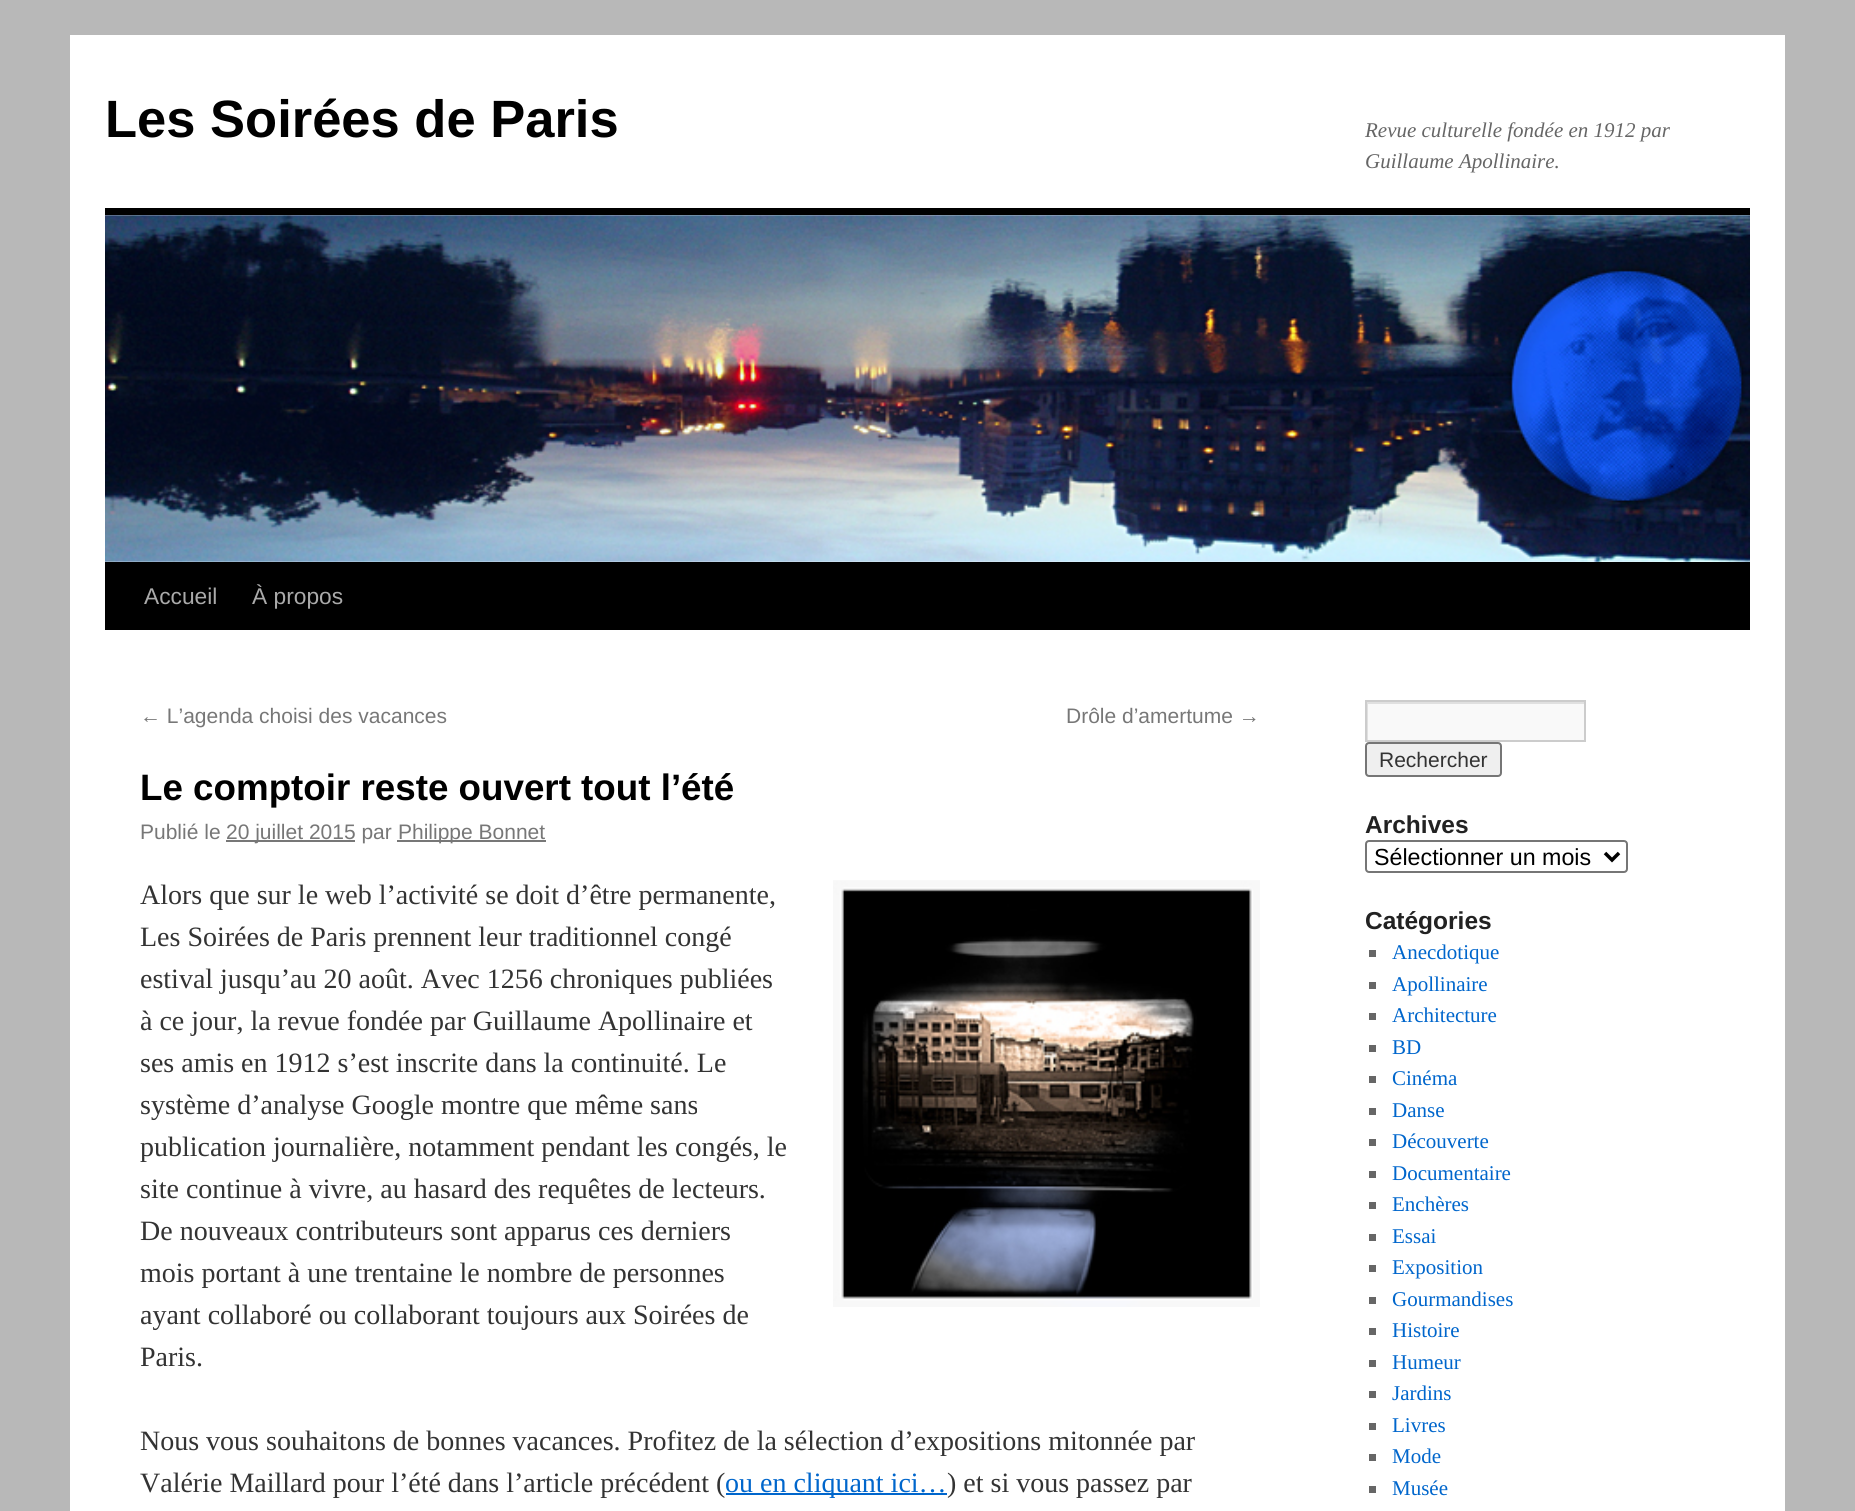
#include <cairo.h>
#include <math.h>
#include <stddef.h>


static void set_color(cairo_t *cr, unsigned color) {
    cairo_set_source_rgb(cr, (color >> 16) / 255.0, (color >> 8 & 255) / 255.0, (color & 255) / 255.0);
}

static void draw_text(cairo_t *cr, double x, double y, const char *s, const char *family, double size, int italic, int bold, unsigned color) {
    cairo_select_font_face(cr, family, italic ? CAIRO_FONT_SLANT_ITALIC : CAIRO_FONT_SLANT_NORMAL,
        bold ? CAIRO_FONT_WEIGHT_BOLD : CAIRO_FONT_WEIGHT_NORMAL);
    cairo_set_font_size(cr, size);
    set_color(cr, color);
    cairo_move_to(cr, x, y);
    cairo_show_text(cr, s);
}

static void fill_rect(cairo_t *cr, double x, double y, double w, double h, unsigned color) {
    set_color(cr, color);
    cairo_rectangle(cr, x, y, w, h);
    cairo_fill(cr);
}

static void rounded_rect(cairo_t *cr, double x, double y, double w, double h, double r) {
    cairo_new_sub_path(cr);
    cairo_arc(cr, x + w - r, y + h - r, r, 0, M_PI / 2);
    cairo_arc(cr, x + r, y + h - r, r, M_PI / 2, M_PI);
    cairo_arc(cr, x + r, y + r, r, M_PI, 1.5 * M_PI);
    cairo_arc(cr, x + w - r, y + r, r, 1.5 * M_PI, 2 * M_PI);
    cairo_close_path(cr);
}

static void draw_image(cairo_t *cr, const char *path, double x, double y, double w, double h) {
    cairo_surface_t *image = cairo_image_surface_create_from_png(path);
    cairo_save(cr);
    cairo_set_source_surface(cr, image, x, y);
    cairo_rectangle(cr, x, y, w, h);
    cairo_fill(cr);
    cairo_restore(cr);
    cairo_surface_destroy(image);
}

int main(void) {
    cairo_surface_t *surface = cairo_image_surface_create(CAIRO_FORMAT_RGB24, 1855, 1511);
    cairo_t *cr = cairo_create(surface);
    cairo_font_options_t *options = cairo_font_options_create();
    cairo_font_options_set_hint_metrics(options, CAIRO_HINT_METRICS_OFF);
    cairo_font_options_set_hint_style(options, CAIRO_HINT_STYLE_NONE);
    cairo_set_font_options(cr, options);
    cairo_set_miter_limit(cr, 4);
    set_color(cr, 0xB8B8B8);
    cairo_paint(cr);
    fill_rect(cr, 70, 35, 1715, 1476, 0xFFFFFF);
    draw_text(cr, 105, 137, "Les Soirées de Paris", "Liberation Sans", 52.5, 0, 1, 0x000000);
    draw_text(cr, 1365, 137, "Revue culturelle fondée en 1912 par", "Liberation Serif", 21, 1, 0, 0x666666);
    draw_text(cr, 1365, 168, "Guillaume Apollinaire.", "Liberation Serif", 21, 1, 0, 0x666666);
    fill_rect(cr, 105, 208, 1645, 7, 0x000000);
    fill_rect(cr, 105, 562, 1645, 68, 0x000000);
    draw_image(cr, "assets/img1.png", 105, 215, 1645, 347);
    draw_text(cr, 144, 604, "Accueil", "Liberation Sans", 22.75, 0, 0, 0xAAAAAA);
    draw_text(cr, 252, 604, "À propos", "Liberation Sans", 22.75, 0, 0, 0xAAAAAA);
    draw_text(cr, 140, 723, "← L’agenda choisi des vacances", "Liberation Sans", 21, 0, 0, 0x777777);
    draw_text(cr, 1066, 723, "Drôle d’amertume →", "Liberation Sans", 21, 0, 0, 0x777777);
    draw_text(cr, 140, 800, "Le comptoir reste ouvert tout l’été", "Liberation Sans", 36.75, 0, 1, 0x000000);
    draw_text(cr, 140, 839, "Publié le", "Liberation Sans", 21, 0, 0, 0x777777);
    fill_rect(cr, 226, 840, 129, 2, 0x777777);
    draw_text(cr, 226, 839, "20 juillet 2015 par", "Liberation Sans", 21, 0, 0, 0x777777);
    fill_rect(cr, 397, 840, 149, 2, 0x777777);
    draw_text(cr, 398, 839, "Philippe Bonnet", "Liberation Sans", 21, 0, 0, 0x777777);
    draw_text(cr, 140, 904, "Alors que sur le web l’activité se doit d’être permanente,", "Liberation Serif", 28, 0, 0, 0x333333);
    draw_image(cr, "assets/img2.png", 833, 880, 427, 427);
    draw_text(cr, 140, 946, "Les Soirées de Paris prennent leur traditionnel congé", "Liberation Serif", 28, 0, 0, 0x333333);
    draw_text(cr, 140, 988, "estival jusqu’au 20 août. Avec 1256 chroniques publiées", "Liberation Serif", 28, 0, 0, 0x333333);
    draw_text(cr, 140, 1030, "à ce jour, la revue fondée par Guillaume Apollinaire et", "Liberation Serif", 28, 0, 0, 0x333333);
    draw_text(cr, 140, 1072, "ses amis en 1912 s’est inscrite dans la continuité. Le", "Liberation Serif", 28, 0, 0, 0x333333);
    draw_text(cr, 140, 1114, "système d’analyse Google montre que même sans", "Liberation Serif", 28, 0, 0, 0x333333);
    draw_text(cr, 140, 1156, "publication journalière, notamment pendant les congés, le", "Liberation Serif", 28, 0, 0, 0x333333);
    draw_text(cr, 140, 1198, "site continue à vivre, au hasard des requêtes de lecteurs.", "Liberation Serif", 28, 0, 0, 0x333333);
    draw_text(cr, 140, 1240, "De nouveaux contributeurs sont apparus ces derniers", "Liberation Serif", 28, 0, 0, 0x333333);
    draw_text(cr, 140, 1282, "mois portant à une trentaine le nombre de personnes", "Liberation Serif", 28, 0, 0, 0x333333);
    draw_text(cr, 140, 1324, "ayant collaboré ou collaborant toujours aux Soirées de", "Liberation Serif", 28, 0, 0, 0x333333);
    draw_text(cr, 140, 1366, "Paris.", "Liberation Serif", 28, 0, 0, 0x333333);
    draw_text(cr, 140, 1450, "Nous vous souhaitons de bonnes vacances. Profitez de la sélection d’expositions mitonnée par", "Liberation Serif", 28, 0, 0, 0x333333);
    draw_text(cr, 140, 1492, "Valérie Maillard pour l’été dans l’article précédent (", "Liberation Serif", 28, 0, 0, 0x333333);
    fill_rect(cr, 726, 1493, 221, 2, 0x0066CC);
    draw_text(cr, 725, 1492, "ou en cliquant ici…", "Liberation Serif", 28, 0, 0, 0x0066CC);
    draw_text(cr, 947, 1492, ") et si vous passez par", "Liberation Serif", 28, 0, 0, 0x333333);
    fill_rect(cr, 1368, 704, 216, 36, 0xF9F9F9);
    cairo_save(cr);
    cairo_rectangle(cr, 1367, 702, 217, 38);
    cairo_clip(cr);
    set_color(cr, 0xE0E0E0);
    cairo_set_fill_rule(cr, CAIRO_FILL_RULE_EVEN_ODD);
    cairo_new_path(cr);
    cairo_move_to(cr, 1194, 528);
    cairo_line_to(cr, 1757, 528);
    cairo_line_to(cr, 1757, 914);
    cairo_line_to(cr, 1194, 914);
    cairo_close_path(cr);
    cairo_move_to(cr, 1368, 704);
    cairo_line_to(cr, 1586, 704);
    cairo_line_to(cr, 1586, 742);
    cairo_line_to(cr, 1368, 742);
    cairo_close_path(cr);
    cairo_fill(cr);
    cairo_restore(cr);
    cairo_rectangle(cr, 1366, 701, 219, 40);
    set_color(cr, 0xCCCCCC);
    cairo_stroke(cr);
    set_color(cr, 0xEFEFEF);
    rounded_rect(cr, 1366, 743, 135, 33, 3);
    cairo_fill_preserve(cr);
    set_color(cr, 0x767676);
    cairo_stroke(cr);
    draw_text(cr, 1379, 767, "Rechercher", "Liberation Sans", 21, 0, 0, 0x333333);
    draw_text(cr, 1365, 833, "Archives", "Liberation Sans", 24.5, 0, 1, 0x222222);
    rounded_rect(cr, 1366, 841, 261, 31, 3);
    set_color(cr, 0x767676);
    cairo_stroke(cr);
    cairo_new_path(cr);
    cairo_move_to(cr, 1605, 853);
    cairo_line_to(cr, 1612, 860);
    cairo_line_to(cr, 1619, 853);
    set_color(cr, 0x000000);
    cairo_set_line_width(cr, 3.5);
    cairo_stroke(cr);
    draw_text(cr, 1374, 865, "Sélectionner un mois", "Liberation Sans", 23.25, 0, 0, 0x000000);
    draw_text(cr, 1365, 929, "Catégories", "Liberation Sans", 24.5, 0, 1, 0x222222);
    fill_rect(cr, 1369, 950, 7, 7, 0x666666);
    draw_text(cr, 1392, 959, "Anecdotique", "Liberation Serif", 21, 0, 0, 0x0066CC);
    fill_rect(cr, 1369, 982, 7, 7, 0x666666);
    draw_text(cr, 1392, 991, "Apollinaire", "Liberation Serif", 21, 0, 0, 0x0066CC);
    fill_rect(cr, 1369, 1013, 7, 7, 0x666666);
    draw_text(cr, 1392, 1022, "Architecture", "Liberation Serif", 21, 0, 0, 0x0066CC);
    fill_rect(cr, 1369, 1045, 7, 7, 0x666666);
    draw_text(cr, 1392, 1054, "BD", "Liberation Serif", 21, 0, 0, 0x0066CC);
    fill_rect(cr, 1369, 1076, 7, 7, 0x666666);
    draw_text(cr, 1392, 1085, "Cinéma", "Liberation Serif", 21, 0, 0, 0x0066CC);
    fill_rect(cr, 1369, 1108, 7, 7, 0x666666);
    draw_text(cr, 1392, 1117, "Danse", "Liberation Serif", 21, 0, 0, 0x0066CC);
    fill_rect(cr, 1369, 1139, 7, 7, 0x666666);
    draw_text(cr, 1392, 1148, "Découverte", "Liberation Serif", 21, 0, 0, 0x0066CC);
    fill_rect(cr, 1369, 1171, 7, 7, 0x666666);
    draw_text(cr, 1392, 1180, "Documentaire", "Liberation Serif", 21, 0, 0, 0x0066CC);
    fill_rect(cr, 1369, 1202, 7, 7, 0x666666);
    draw_text(cr, 1392, 1211, "Enchères", "Liberation Serif", 21, 0, 0, 0x0066CC);
    fill_rect(cr, 1369, 1234, 7, 7, 0x666666);
    draw_text(cr, 1392, 1243, "Essai", "Liberation Serif", 21, 0, 0, 0x0066CC);
    fill_rect(cr, 1369, 1265, 7, 7, 0x666666);
    draw_text(cr, 1392, 1274, "Exposition", "Liberation Serif", 21, 0, 0, 0x0066CC);
    fill_rect(cr, 1369, 1297, 7, 7, 0x666666);
    draw_text(cr, 1392, 1306, "Gourmandises", "Liberation Serif", 21, 0, 0, 0x0066CC);
    fill_rect(cr, 1369, 1328, 7, 7, 0x666666);
    draw_text(cr, 1392, 1337, "Histoire", "Liberation Serif", 21, 0, 0, 0x0066CC);
    fill_rect(cr, 1369, 1360, 7, 7, 0x666666);
    draw_text(cr, 1392, 1369, "Humeur", "Liberation Serif", 21, 0, 0, 0x0066CC);
    fill_rect(cr, 1369, 1391, 7, 7, 0x666666);
    draw_text(cr, 1392, 1400, "Jardins", "Liberation Serif", 21, 0, 0, 0x0066CC);
    fill_rect(cr, 1369, 1423, 7, 7, 0x666666);
    draw_text(cr, 1392, 1432, "Livres", "Liberation Serif", 21, 0, 0, 0x0066CC);
    fill_rect(cr, 1369, 1454, 7, 7, 0x666666);
    draw_text(cr, 1392, 1463, "Mode", "Liberation Serif", 21, 0, 0, 0x0066CC);
    fill_rect(cr, 1369, 1486, 7, 7, 0x666666);
    draw_text(cr, 1392, 1495, "Musée", "Liberation Serif", 21, 0, 0, 0x0066CC);
    cairo_surface_write_to_png(surface, "output.png");
    cairo_font_options_destroy(options);
    cairo_destroy(cr);
    cairo_surface_destroy(surface);
    return 0;
}
